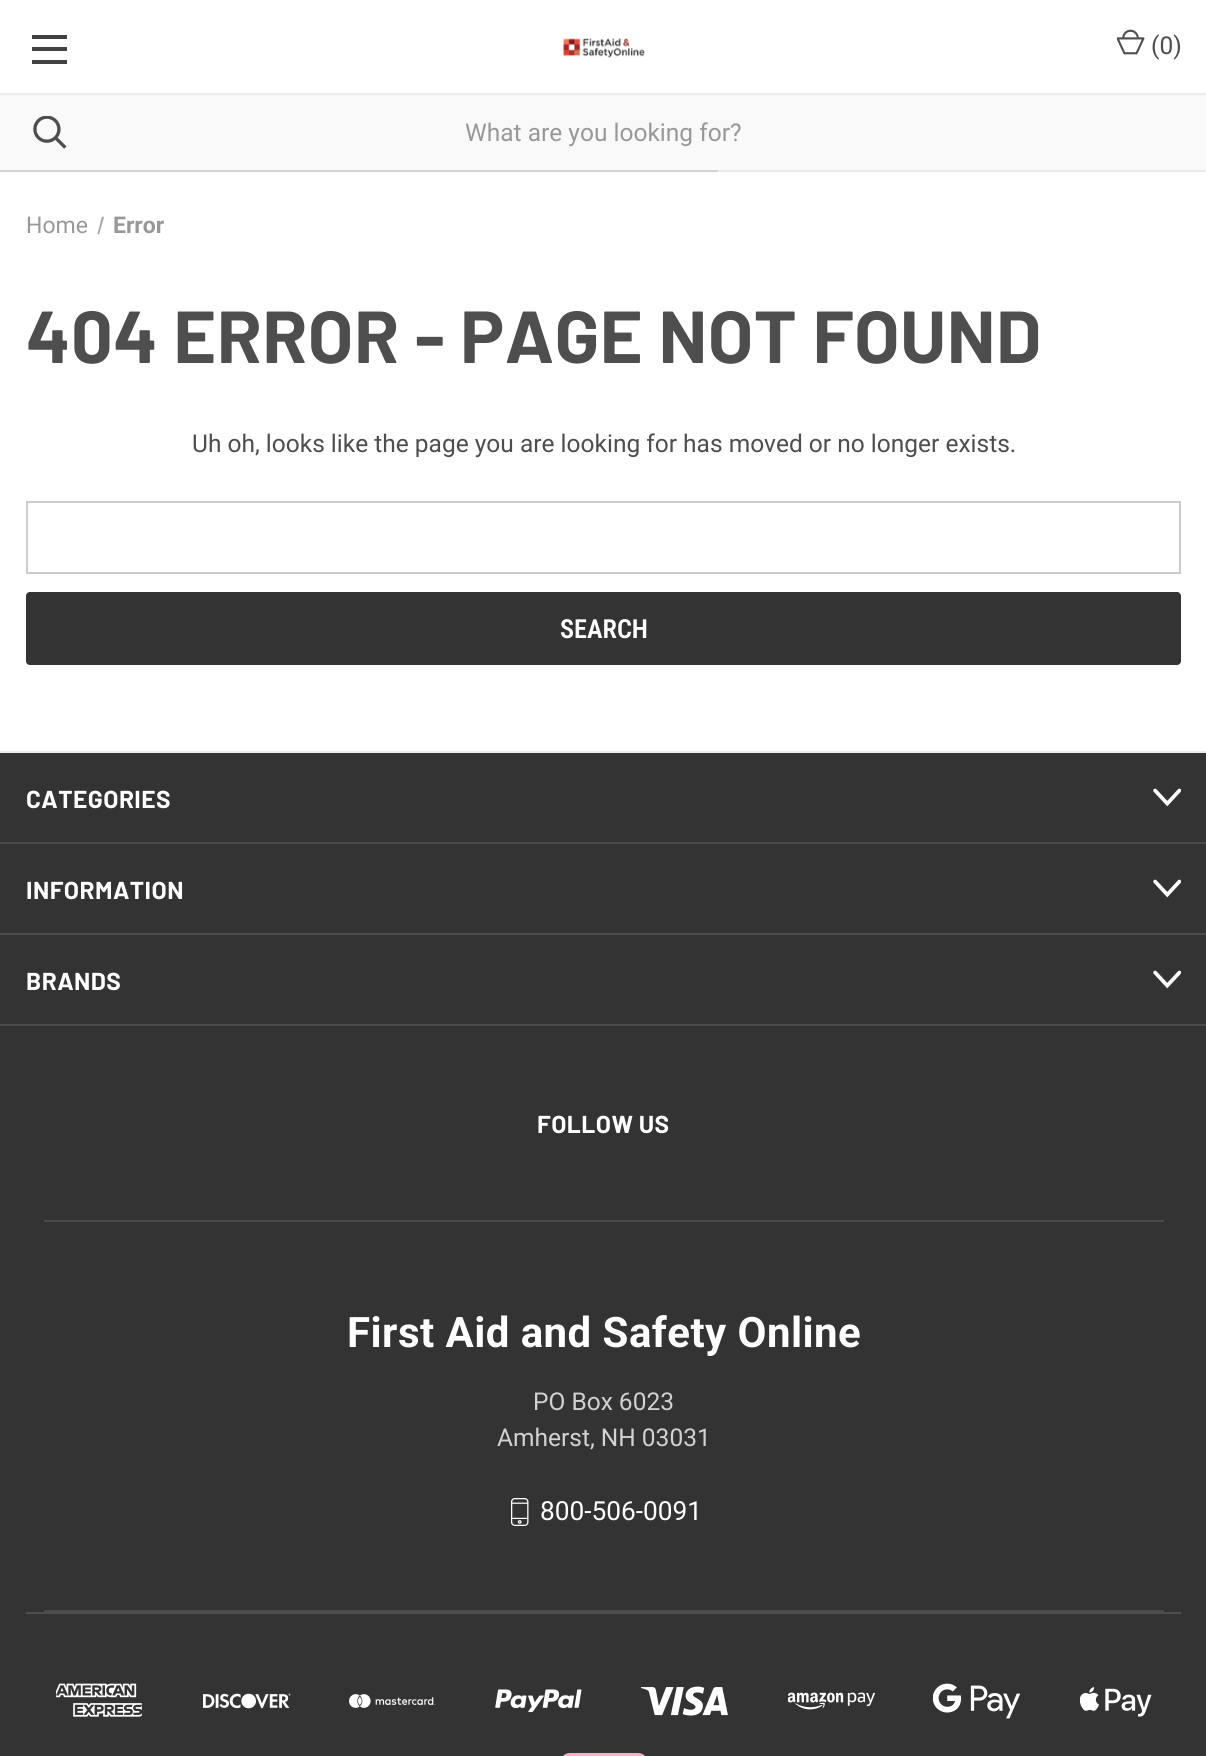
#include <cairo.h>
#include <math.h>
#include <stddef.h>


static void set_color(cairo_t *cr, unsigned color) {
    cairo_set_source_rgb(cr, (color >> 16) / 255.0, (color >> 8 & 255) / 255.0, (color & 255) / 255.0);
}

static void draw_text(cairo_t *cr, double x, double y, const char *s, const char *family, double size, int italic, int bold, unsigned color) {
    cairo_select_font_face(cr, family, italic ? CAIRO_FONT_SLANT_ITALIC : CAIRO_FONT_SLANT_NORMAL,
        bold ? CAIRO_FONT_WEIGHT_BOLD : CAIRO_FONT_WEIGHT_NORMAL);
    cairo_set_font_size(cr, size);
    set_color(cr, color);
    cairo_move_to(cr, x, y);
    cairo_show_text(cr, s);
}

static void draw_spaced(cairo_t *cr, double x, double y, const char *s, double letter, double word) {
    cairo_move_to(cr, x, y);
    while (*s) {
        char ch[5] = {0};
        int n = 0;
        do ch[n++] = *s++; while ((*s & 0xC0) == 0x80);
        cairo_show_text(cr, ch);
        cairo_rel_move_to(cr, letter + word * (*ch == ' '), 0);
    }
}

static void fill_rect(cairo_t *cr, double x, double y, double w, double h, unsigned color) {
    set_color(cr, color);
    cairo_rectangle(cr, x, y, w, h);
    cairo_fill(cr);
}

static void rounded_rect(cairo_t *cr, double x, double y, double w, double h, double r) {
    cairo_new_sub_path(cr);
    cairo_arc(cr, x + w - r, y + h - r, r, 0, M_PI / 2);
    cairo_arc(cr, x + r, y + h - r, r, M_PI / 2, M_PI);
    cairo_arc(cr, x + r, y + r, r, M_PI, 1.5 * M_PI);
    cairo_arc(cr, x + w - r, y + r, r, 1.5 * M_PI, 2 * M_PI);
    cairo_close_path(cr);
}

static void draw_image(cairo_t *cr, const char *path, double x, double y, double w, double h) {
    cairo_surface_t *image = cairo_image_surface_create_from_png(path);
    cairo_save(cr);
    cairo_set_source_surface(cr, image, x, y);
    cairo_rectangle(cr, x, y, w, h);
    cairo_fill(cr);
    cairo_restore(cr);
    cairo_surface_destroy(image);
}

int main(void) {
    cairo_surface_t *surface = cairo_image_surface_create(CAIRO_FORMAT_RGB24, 1206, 1756);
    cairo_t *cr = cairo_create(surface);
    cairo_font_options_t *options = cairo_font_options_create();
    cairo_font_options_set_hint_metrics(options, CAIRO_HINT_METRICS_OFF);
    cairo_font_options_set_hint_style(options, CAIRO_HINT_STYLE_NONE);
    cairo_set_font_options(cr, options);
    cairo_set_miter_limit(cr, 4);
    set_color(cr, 0xFFFFFF);
    cairo_paint(cr);
    fill_rect(cr, 718, 170, 488, 2, 0xEBEBEB);
    fill_rect(cr, 32, 47, 35, 4, 0x424242);
    fill_rect(cr, 32, 35, 35, 4, 0x424242);
    fill_rect(cr, 32, 60, 35, 4, 0x424242);
    draw_image(cr, "assets/img1.png", 563, 38, 82, 20);
    draw_image(cr, "assets/img2.png", 1117, 29, 28, 26);
    draw_text(cr, 1151, 54, "(0)", "Roboto", 24.5, 0, 0, 0x4E4E4E);
    fill_rect(cr, 0, 95, 1206, 75, 0xF9F9F9);
    draw_image(cr, "assets/img3.png", 33, 116, 34, 33);
    fill_rect(cr, 0, 93, 1206, 2, 0xEBEBEB);
    draw_text(cr, 465, 141, "What are you looking for?", "Roboto", 24.5, 0, 0, 0x989898);
    fill_rect(cr, 0, 170, 718, 2, 0xD2D2D2);
    draw_text(cr, 26, 233, "Home", "Roboto", 23, 0, 0, 0x989898);
    set_color(cr, 0xA3A3A3);
    cairo_new_path(cr);
    cairo_move_to(cr, 102, 216.5);
    cairo_line_to(cr, 104, 217);
    cairo_line_to(cr, 99, 234.5);
    cairo_line_to(cr, 97.5, 234);
    cairo_close_path(cr);
    cairo_fill(cr);
    draw_text(cr, 113, 233, "Error", "Roboto", 23, 0, 1, 0x989898);
    cairo_select_font_face(cr, "Barlow", CAIRO_FONT_SLANT_NORMAL, CAIRO_FONT_WEIGHT_BOLD);
    cairo_set_font_size(cr, 73.5);
    set_color(cr, 0x4E4E4E);
    draw_spaced(cr, 26, 363, "404 ERROR - PAGE NOT FOUND", 0.45, 0);
    draw_text(cr, 192, 452, "Uh oh, looks like the page you are looking for has moved or no longer exists.", "Roboto", 24.5, 0, 0, 0x4E4E4E);
    cairo_rectangle(cr, 27, 502, 1153, 71);
    set_color(cr, 0xCCCCCC);
    cairo_stroke(cr);
    set_color(cr, 0x333333);
    rounded_rect(cr, 26, 592, 1155, 73, 4);
    cairo_fill(cr);
    draw_text(cr, 560, 638, "SEARCH", "Roboto Condensed SemiBold", 26.25, 0, 0, 0xFFFFFF);
    fill_rect(cr, 0, 753, 1206, 1003, 0x333333);
    fill_rect(cr, 0, 751, 1206, 2, 0xEBEBEB);
    fill_rect(cr, 0, 842, 1206, 2, 0x4A4A4A);
    cairo_select_font_face(cr, "Barlow", CAIRO_FONT_SLANT_NORMAL, CAIRO_FONT_WEIGHT_BOLD);
    cairo_set_font_size(cr, 24.5);
    set_color(cr, 0xFFFFFF);
    draw_spaced(cr, 26, 808, "CATEGORIES", 0.45, 0);
    draw_image(cr, "assets/img4.png", 1153, 788, 28, 19);
    fill_rect(cr, 0, 933, 1206, 2, 0x4A4A4A);
    set_color(cr, 0xFFFFFF);
    draw_spaced(cr, 26, 899, "INFORMATION", 0.45, 0);
    draw_image(cr, "assets/img4.png", 1153, 879, 28, 19);
    fill_rect(cr, 0, 1024, 1206, 2, 0x4A4A4A);
    set_color(cr, 0xFFFFFF);
    draw_spaced(cr, 26, 990, "BRANDS", 0.45, 0);
    draw_image(cr, "assets/img4.png", 1153, 970, 28, 19);
    fill_rect(cr, 44, 1220, 1120, 2, 0x4A4A4A);
    set_color(cr, 0xFFFFFF);
    draw_spaced(cr, 537, 1133, "FOLLOW US", 0.45, 0);
    fill_rect(cr, 44, 1610, 1120, 2, 0x4A4A4A);
    cairo_select_font_face(cr, "Roboto", CAIRO_FONT_SLANT_NORMAL, CAIRO_FONT_WEIGHT_BOLD);
    cairo_set_font_size(cr, 42);
    set_color(cr, 0xFFFFFF);
    draw_spaced(cr, 347, 1347, "First Aid and Safety Online", 0.45, 0);
    draw_text(cr, 533, 1410, "PO Box 6023", "Roboto", 24.5, 0, 0, 0xD2D2D2);
    draw_text(cr, 497, 1446, "Amherst, NH 03031", "Roboto", 24.5, 0, 0, 0xD2D2D2);
    draw_image(cr, "assets/img5.png", 511, 1498, 18, 28);
    draw_text(cr, 540, 1520, "800-506-0091", "Roboto", 26.25, 0, 0, 0xFFFFFF);
    fill_rect(cr, 26, 1612, 1155, 2, 0x4E4E4E);
    draw_image(cr, "assets/img6.png", 56, 1683, 86, 34);
    draw_image(cr, "assets/img7.png", 203, 1693, 88, 16);
    draw_image(cr, "assets/img8.png", 349, 1694, 87, 14);
    draw_image(cr, "assets/img9.png", 495, 1689, 87, 24);
    draw_image(cr, "assets/img10.png", 641, 1686, 87, 30);
    draw_image(cr, "assets/img11.png", 788, 1692, 87, 18);
    draw_image(cr, "assets/img12.png", 933, 1683, 87, 36);
    draw_image(cr, "assets/img13.png", 1080, 1687, 72, 30);
    draw_image(cr, "assets/img14.png", 563, 1753, 82, 3);
    cairo_surface_write_to_png(surface, "output.png");
    cairo_font_options_destroy(options);
    cairo_destroy(cr);
    cairo_surface_destroy(surface);
    return 0;
}
